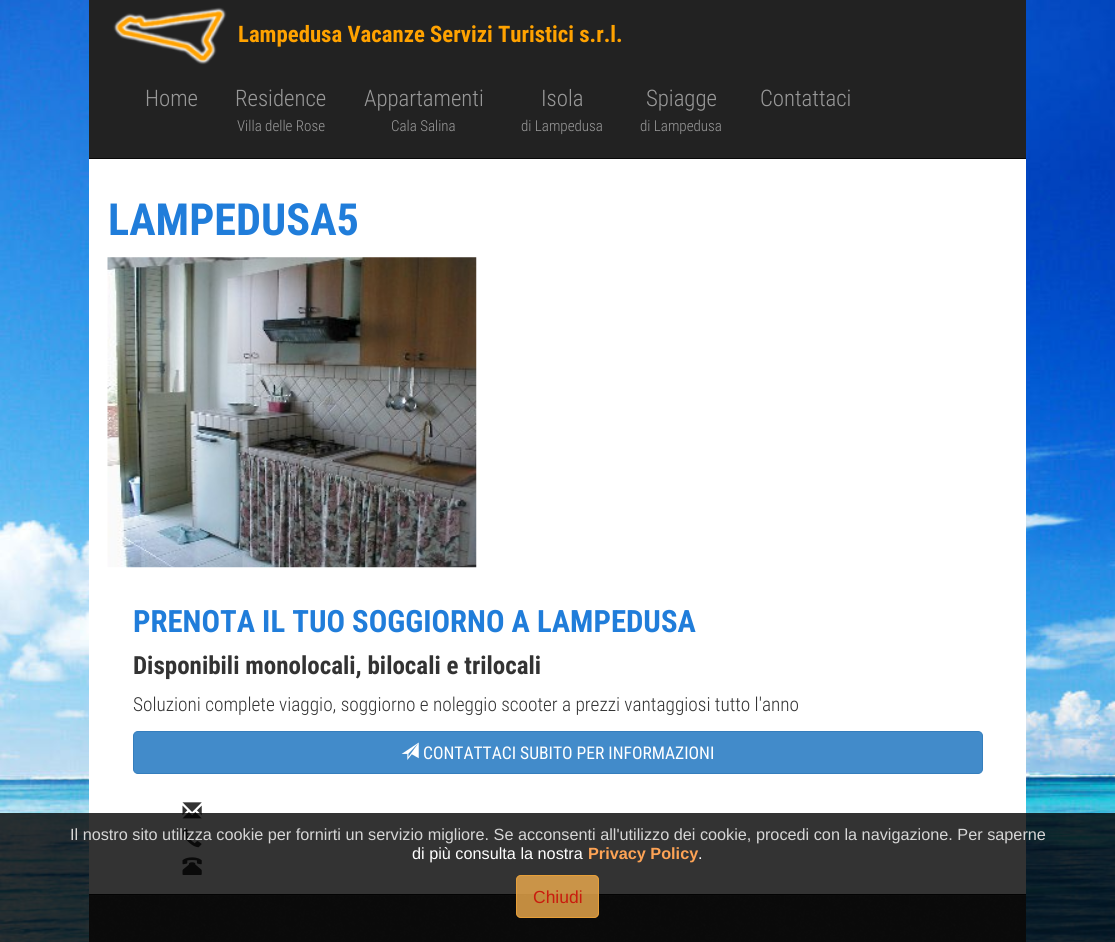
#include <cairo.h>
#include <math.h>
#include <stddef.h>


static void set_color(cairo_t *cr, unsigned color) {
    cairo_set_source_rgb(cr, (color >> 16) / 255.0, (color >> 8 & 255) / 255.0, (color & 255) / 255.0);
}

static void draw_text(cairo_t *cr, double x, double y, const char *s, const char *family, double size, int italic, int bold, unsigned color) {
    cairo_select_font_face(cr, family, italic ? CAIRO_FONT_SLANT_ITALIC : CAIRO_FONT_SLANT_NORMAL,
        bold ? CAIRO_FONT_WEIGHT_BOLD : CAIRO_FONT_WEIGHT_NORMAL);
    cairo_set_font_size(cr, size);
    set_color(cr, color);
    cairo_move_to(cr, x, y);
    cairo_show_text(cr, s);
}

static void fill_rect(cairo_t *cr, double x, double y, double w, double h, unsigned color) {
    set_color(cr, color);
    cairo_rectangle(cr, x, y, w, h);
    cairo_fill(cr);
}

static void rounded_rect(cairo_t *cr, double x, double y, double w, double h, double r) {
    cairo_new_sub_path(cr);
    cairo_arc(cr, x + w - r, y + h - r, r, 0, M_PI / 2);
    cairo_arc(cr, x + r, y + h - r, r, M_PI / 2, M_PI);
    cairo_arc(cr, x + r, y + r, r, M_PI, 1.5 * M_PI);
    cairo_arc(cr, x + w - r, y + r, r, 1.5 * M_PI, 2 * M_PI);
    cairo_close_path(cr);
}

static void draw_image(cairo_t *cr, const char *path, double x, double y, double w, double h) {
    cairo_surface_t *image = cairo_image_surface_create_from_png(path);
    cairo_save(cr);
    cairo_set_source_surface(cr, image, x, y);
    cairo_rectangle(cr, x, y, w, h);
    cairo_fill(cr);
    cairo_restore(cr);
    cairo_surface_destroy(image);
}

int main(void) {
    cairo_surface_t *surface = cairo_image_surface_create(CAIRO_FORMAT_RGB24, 1115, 942);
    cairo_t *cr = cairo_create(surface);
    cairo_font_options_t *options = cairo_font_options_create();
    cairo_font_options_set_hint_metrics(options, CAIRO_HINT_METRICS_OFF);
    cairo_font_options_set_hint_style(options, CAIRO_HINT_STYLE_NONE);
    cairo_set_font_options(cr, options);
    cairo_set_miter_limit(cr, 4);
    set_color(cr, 0xFFFFFF);
    cairo_paint(cr);
    draw_image(cr, "assets/img1.png", 0, 0, 1115, 942);
    fill_rect(cr, 89, 0, 937, 158, 0x222222);
    fill_rect(cr, 89, 158, 937, 1, 0x080808);
    draw_image(cr, "assets/img2.png", 113, 7, 114, 58);
    draw_text(cr, 238, 42, "Lampedusa Vacanze Servizi Turistici s.r.l.", "Roboto Condensed", 22.75, 0, 1, 0xFFA200);
    draw_text(cr, 145, 106, "Home", "Roboto Condensed Light", 22.75, 0, 0, 0x999999);
    draw_text(cr, 235, 106, "Residence", "Roboto Condensed Light", 22.75, 0, 0, 0x999999);
    draw_text(cr, 237, 131, "Villa delle Rose", "Roboto Condensed Light", 15, 0, 0, 0x999999);
    draw_text(cr, 364, 106, "Appartamenti", "Roboto Condensed Light", 22.75, 0, 0, 0x999999);
    draw_text(cr, 391, 131, "Cala Salina", "Roboto Condensed Light", 15, 0, 0, 0x999999);
    draw_text(cr, 541, 106, "Isola", "Roboto Condensed Light", 22.75, 0, 0, 0x999999);
    draw_text(cr, 521, 131, "di Lampedusa", "Roboto Condensed Light", 15, 0, 0, 0x999999);
    draw_text(cr, 646, 106, "Spiagge", "Roboto Condensed Light", 22.75, 0, 0, 0x999999);
    draw_text(cr, 640, 131, "di Lampedusa", "Roboto Condensed Light", 15, 0, 0, 0x999999);
    draw_text(cr, 760, 106, "Contattaci", "Roboto Condensed Light", 22.75, 0, 0, 0x999999);
    fill_rect(cr, 89, 159, 937, 735, 0xFFFFFF);
    draw_text(cr, 108, 235, "LAMPEDUSA5", "Roboto Condensed", 44.25, 0, 1, 0x207DDA);
    draw_image(cr, "assets/img3.png", 107, 257, 370, 311);
    draw_text(cr, 133, 632, "PRENOTA IL TUO SOGGIORNO A LAMPEDUSA", "Roboto Condensed", 30.75, 0, 1, 0x207DDA);
    draw_text(cr, 133, 674, "Disponibili monolocali, bilocali e trilocali", "Roboto Condensed", 25, 0, 1, 0x333333);
    draw_text(cr, 133, 711, "Soluzioni complete viaggio, soggiorno e noleggio scooter a prezzi vantaggiosi tutto l'anno", "Roboto Condensed Light", 19.25, 0, 0, 0x333333);
    set_color(cr, 0x428BCA);
    rounded_rect(cr, 133.5, 731.5, 849, 42, 4.5);
    cairo_fill_preserve(cr);
    set_color(cr, 0x357EBD);
    cairo_set_line_width(cr, 1);
    cairo_stroke(cr);
    draw_image(cr, "assets/img4.png", 401, 742, 18, 18);
    draw_text(cr, 423, 759, "CONTATTACI SUBITO PER INFORMAZIONI", "Roboto Condensed", 17.5, 0, 0, 0xFFFFFF);
    draw_image(cr, "assets/img5.png", 182, 802, 20, 17);
    draw_image(cr, "assets/img6.png", 182, 828, 20, 20);
    draw_image(cr, "assets/img7.png", 182, 857, 20, 18);
    fill_rect(cr, 89, 895, 937, 47, 0x333333);
    draw_image(cr, "assets/img8.png", 89, 895, 937, 47);
    cairo_set_source_rgba(cr, 0.49, 0.49, 0.49, 0.1);
    cairo_rectangle(cr, 89, 895, 937, 1);
    cairo_fill(cr);
    fill_rect(cr, 89, 894, 937, 1, 0x0D0D0D);
    cairo_set_source_rgba(cr, 0, 0, 0, 0.8);
    cairo_rectangle(cr, 0, 813, 1115, 129);
    cairo_fill(cr);
    draw_text(cr, 70, 840, "Il nostro sito utilizza cookie per fornirti un servizio migliore. Se acconsenti all'utilizzo dei cookie, procedi con la navigazione. Per saperne", "Liberation Sans", 16.25, 0, 0, 0xD6D6D6);
    draw_text(cr, 412, 859, "di più consulta la nostra", "Liberation Sans", 16.25, 0, 0, 0xFFFFFF);
    draw_text(cr, 588, 859, "Privacy Policy", "Liberation Sans", 16.25, 0, 1, 0xFDA355);
    draw_text(cr, 698, 859, ".", "Liberation Sans", 16.25, 0, 0, 0xFFFFFF);
    cairo_set_source_rgba(cr, 0.941, 0.678, 0.306, 0.8);
    rounded_rect(cr, 516, 875, 83, 43, 5);
    cairo_fill(cr);
    rounded_rect(cr, 516.5, 875.5, 82, 42, 4.5);
    cairo_set_source_rgba(cr, 0.933, 0.635, 0.212, 0.8);
    cairo_stroke(cr);
    draw_text(cr, 533, 903, "Chiudi", "Liberation Sans", 17.5, 0, 0, 0xC91C0D);
    cairo_surface_write_to_png(surface, "output.png");
    cairo_font_options_destroy(options);
    cairo_destroy(cr);
    cairo_surface_destroy(surface);
    return 0;
}
